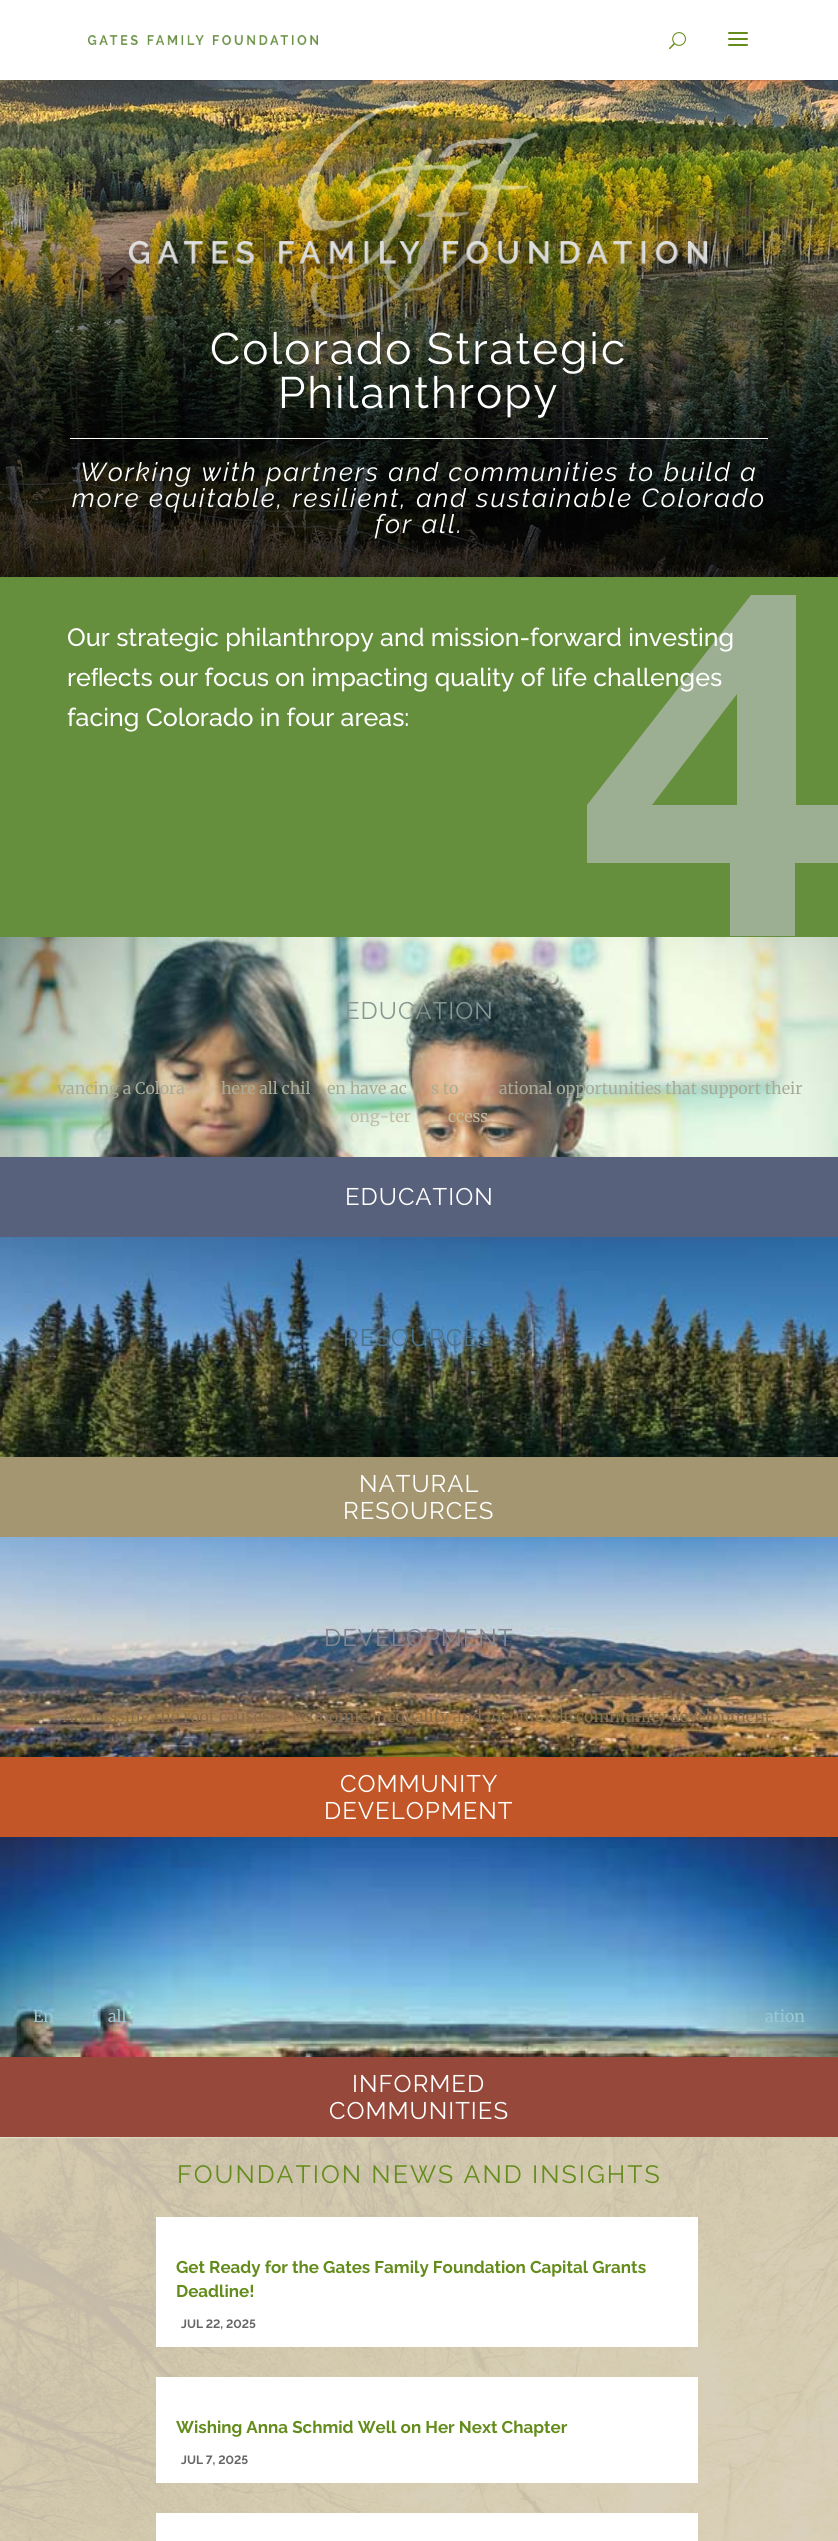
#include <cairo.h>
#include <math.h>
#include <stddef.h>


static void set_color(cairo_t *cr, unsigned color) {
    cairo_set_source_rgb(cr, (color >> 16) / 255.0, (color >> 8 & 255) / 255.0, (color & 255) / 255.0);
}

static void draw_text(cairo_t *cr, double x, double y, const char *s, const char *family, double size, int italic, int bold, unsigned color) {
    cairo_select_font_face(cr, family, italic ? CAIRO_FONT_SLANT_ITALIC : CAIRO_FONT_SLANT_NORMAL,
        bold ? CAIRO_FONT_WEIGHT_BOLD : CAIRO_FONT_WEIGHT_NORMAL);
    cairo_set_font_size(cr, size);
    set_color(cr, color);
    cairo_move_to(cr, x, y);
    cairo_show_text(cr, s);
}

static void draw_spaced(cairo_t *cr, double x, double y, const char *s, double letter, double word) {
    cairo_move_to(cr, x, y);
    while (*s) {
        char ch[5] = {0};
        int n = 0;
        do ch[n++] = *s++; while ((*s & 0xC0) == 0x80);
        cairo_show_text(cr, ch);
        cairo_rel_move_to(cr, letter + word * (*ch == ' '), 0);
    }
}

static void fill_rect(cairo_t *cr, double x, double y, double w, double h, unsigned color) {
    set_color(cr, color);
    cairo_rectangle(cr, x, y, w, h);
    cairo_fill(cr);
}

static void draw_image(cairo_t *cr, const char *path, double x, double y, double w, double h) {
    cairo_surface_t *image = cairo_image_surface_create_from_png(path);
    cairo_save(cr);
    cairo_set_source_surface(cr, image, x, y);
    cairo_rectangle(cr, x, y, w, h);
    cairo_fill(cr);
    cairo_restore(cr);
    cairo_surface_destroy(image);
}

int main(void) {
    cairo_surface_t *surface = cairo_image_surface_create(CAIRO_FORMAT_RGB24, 838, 2541);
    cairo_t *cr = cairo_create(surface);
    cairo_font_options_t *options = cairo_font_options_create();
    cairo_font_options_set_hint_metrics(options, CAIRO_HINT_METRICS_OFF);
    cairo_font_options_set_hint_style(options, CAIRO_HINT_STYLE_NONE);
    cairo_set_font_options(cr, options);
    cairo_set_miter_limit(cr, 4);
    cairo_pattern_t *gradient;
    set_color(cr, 0xFFFFFF);
    cairo_paint(cr);
    draw_image(cr, "assets/img4.png", 0, 80, 838, 497);
    cairo_set_source_rgba(cr, 0, 0, 0, 0.1);
    cairo_rectangle(cr, 0, 80, 838, 1);
    cairo_fill(cr);
    draw_image(cr, "assets/img1.png", 88, 35, 230, 10);
    draw_image(cr, "assets/img2.png", 669, 32, 17, 18);
    draw_image(cr, "assets/img3.png", 728, 32, 20, 14);
    draw_image(cr, "assets/img5.png", 129, 101, 579, 218);
    gradient = cairo_pattern_create_linear(419, 177, 419, 577);
    cairo_pattern_add_color_stop_rgba(gradient, 0, 0, 0, 0, 0);
    cairo_pattern_add_color_stop_rgba(gradient, 0.01, 0, 0, 0, 0);
    cairo_pattern_add_color_stop_rgba(gradient, 1, 0, 0, 0, 0.77);
    cairo_set_source(cr, gradient);
    cairo_pattern_destroy(gradient);
    cairo_rectangle(cr, 0, 192, 838, 385);
    cairo_fill(cr);
    cairo_select_font_face(cr, "Raleway", CAIRO_FONT_SLANT_NORMAL, CAIRO_FONT_WEIGHT_NORMAL);
    cairo_set_font_size(cr, 44);
    set_color(cr, 0xFFFFFF);
    draw_spaced(cr, 210, 364, "Colorado Strategic", 2, 0);
    draw_spaced(cr, 278, 408, "Philanthropy", 2, 0);
    cairo_set_source_rgba(cr, 0, 0, 0, 0.1);
    cairo_rectangle(cr, 134, 435, 634, 1);
    cairo_fill(cr);
    fill_rect(cr, 70, 438, 698, 1, 0xFFFFFF);
    cairo_select_font_face(cr, "Raleway", CAIRO_FONT_SLANT_ITALIC, CAIRO_FONT_WEIGHT_NORMAL);
    cairo_set_font_size(cr, 26);
    draw_spaced(cr, 80, 481, "Working with partners and communities to build a", 2, 0);
    draw_spaced(cr, 72, 507, "more equitable, resilient, and sustainable Colorado", 2, 0);
    draw_spaced(cr, 375, 533, "for all.", 2, 0);
    fill_rect(cr, 0, 577, 838, 360, 0x658E3D);
    set_color(cr, 0x9DAF92);
    cairo_new_path(cr);
    cairo_move_to(cr, 730, 936);
    cairo_line_to(cr, 730, 863);
    cairo_line_to(cr, 587, 863);
    cairo_line_to(cr, 587, 805);
    cairo_line_to(cr, 751, 595);
    cairo_line_to(cr, 796, 595);
    cairo_line_to(cr, 796, 805);
    cairo_line_to(cr, 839, 805);
    cairo_line_to(cr, 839, 863);
    cairo_line_to(cr, 795, 863);
    cairo_line_to(cr, 795, 936);
    cairo_close_path(cr);
    cairo_move_to(cr, 652, 805);
    cairo_line_to(cr, 737, 805);
    cairo_line_to(cr, 737, 694);
    cairo_close_path(cr);
    cairo_fill(cr);
    draw_text(cr, 67, 646, "Our strategic philanthropy and mission-forward investing", "Raleway Medium", 25, 0, 0, 0xFFFFFF);
    draw_text(cr, 67, 686, "re", "Raleway Medium", 25, 0, 0, 0xFFFFFF);
    draw_text(cr, 91, 686, "ﬂ", "Liberation Sans", 25, 0, 0, 0xFFFFFF);
    draw_text(cr, 103, 686, "ects our focus on impacting quality of life challenges", "Raleway Medium", 25, 0, 0, 0xFFFFFF);
    draw_text(cr, 67, 726, "facing Colorado in four areas:", "Raleway Medium", 25, 0, 0, 0xFFFFFF);
    draw_image(cr, "assets/img6.png", 0, 937, 838, 220);
    cairo_select_font_face(cr, "Raleway", CAIRO_FONT_SLANT_NORMAL, CAIRO_FONT_WEIGHT_NORMAL);
    cairo_set_font_size(cr, 24);
    set_color(cr, 0x859790);
    draw_spaced(cr, 345, 1019, "EDUCATION", 1, 0);
    draw_text(cr, 57, 1094, "vancing a Colora", "Merriweather Light", 16, 0, 0, 0xA8AC97);
    draw_text(cr, 221, 1094, "here all chil", "Merriweather Light", 16, 0, 0, 0xA8AC97);
    draw_text(cr, 327, 1094, "en have ac", "Merriweather Light", 16, 0, 0, 0xA8AC97);
    draw_text(cr, 431, 1094, "s to", "Merriweather Light", 16, 0, 0, 0xA8AC97);
    draw_text(cr, 499, 1094, "ational opportunities that support their", "Merriweather Light", 16, 0, 0, 0xA8AC97);
    draw_text(cr, 350, 1122, "ong-ter", "Merriweather Light", 16, 0, 0, 0xC2BCA3);
    draw_text(cr, 448, 1122, "ccess", "Merriweather Light", 16, 0, 0, 0xC2BCA3);
    fill_rect(cr, 0, 1157, 838, 80, 0x58617B);
    cairo_select_font_face(cr, "Raleway", CAIRO_FONT_SLANT_NORMAL, CAIRO_FONT_WEIGHT_NORMAL);
    cairo_set_font_size(cr, 24);
    set_color(cr, 0xFFFFFF);
    draw_spaced(cr, 345, 1205, "EDUCATION", 1, 0);
    draw_image(cr, "assets/img7.png", 0, 1237, 838, 220);
    set_color(cr, 0x4C718D);
    draw_spaced(cr, 343, 1346, "RESOURCES", 1, 0);
    draw_text(cr, 200, 1422, "a", "Merriweather Light", 16, 0, 0, 0x29321F);
    draw_text(cr, 519, 1422, "e", "Merriweather Light", 16, 0, 0, 0x29321F);
    fill_rect(cr, 0, 1457, 838, 80, 0xA49670);
    cairo_select_font_face(cr, "Raleway", CAIRO_FONT_SLANT_NORMAL, CAIRO_FONT_WEIGHT_NORMAL);
    cairo_set_font_size(cr, 24);
    set_color(cr, 0xFFFFFF);
    draw_spaced(cr, 359, 1492, "NATURAL", 1, 0);
    draw_spaced(cr, 343, 1519, "RESOURCES", 1, 0);
    draw_image(cr, "assets/img8.png", 0, 1537, 838, 220);
    set_color(cr, 0x848791);
    draw_spaced(cr, 324, 1646, "DEVELOPMENT", 1, 0);
    draw_text(cr, 63, 1722, "Addressing the root causes of economic inequality and inequitable community development.", "Merriweather Light", 16, 0, 0, 0x8B6E4B);
    fill_rect(cr, 0, 1757, 838, 80, 0xC25628);
    cairo_select_font_face(cr, "Raleway", CAIRO_FONT_SLANT_NORMAL, CAIRO_FONT_WEIGHT_NORMAL);
    cairo_set_font_size(cr, 24);
    set_color(cr, 0xFFFFFF);
    draw_spaced(cr, 340, 1792, "COMMUNITY", 1, 0);
    draw_spaced(cr, 324, 1819, "DEVELOPMENT", 1, 0);
    draw_image(cr, "assets/img9.png", 0, 1837, 838, 220);
    draw_text(cr, 33, 2022, "En", "Merriweather Light", 16, 0, 0, 0x99C9D7);
    draw_text(cr, 108, 2022, "all", "Merriweather Light", 16, 0, 0, 0x99C9D7);
    draw_text(cr, 765, 2022, "ation", "Merriweather Light", 16, 0, 0, 0x99C9D7);
    draw_text(cr, 525, 2049, ".", "Merriweather Light", 16, 0, 0, 0x939C89);
    fill_rect(cr, 0, 2057, 838, 80, 0x96493A);
    cairo_select_font_face(cr, "Raleway", CAIRO_FONT_SLANT_NORMAL, CAIRO_FONT_WEIGHT_NORMAL);
    cairo_set_font_size(cr, 24);
    set_color(cr, 0xFFFFFF);
    draw_spaced(cr, 352, 2092, "INFORMED", 1, 0);
    draw_spaced(cr, 329, 2119, "COMMUNITIES", 1, 0);
    draw_image(cr, "assets/img10.png", 0, 2137, 838, 404);
    cairo_set_font_size(cr, 25);
    set_color(cr, 0x648C1C);
    draw_spaced(cr, 177, 2183, "FOUNDATION NEWS AND INSIGHTS", 2, 0);
    fill_rect(cr, 156, 2217, 542, 130, 0xFFFFFF);
    draw_text(cr, 176, 2273, "Get Ready for the Gates Family Foundation Capital Grants", "Raleway", 17, 0, 1, 0x648C1C);
    draw_text(cr, 176, 2297, "Deadline!", "Raleway", 17, 0, 1, 0x648C1C);
    draw_text(cr, 181, 2328, "JUL 22, 2025", "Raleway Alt", 12, 0, 1, 0x666666);
    fill_rect(cr, 156, 2377, 542, 106, 0xFFFFFF);
    draw_text(cr, 176, 2433, "Wishing Anna Schmid Well on Her Next Chapter", "Raleway", 17, 0, 1, 0x648C1C);
    draw_text(cr, 181, 2464, "JUL 7, 2025", "Raleway Alt", 12, 0, 1, 0x666666);
    fill_rect(cr, 156, 2513, 542, 28, 0xFFFFFF);
    cairo_surface_write_to_png(surface, "output.png");
    cairo_font_options_destroy(options);
    cairo_destroy(cr);
    cairo_surface_destroy(surface);
    return 0;
}
